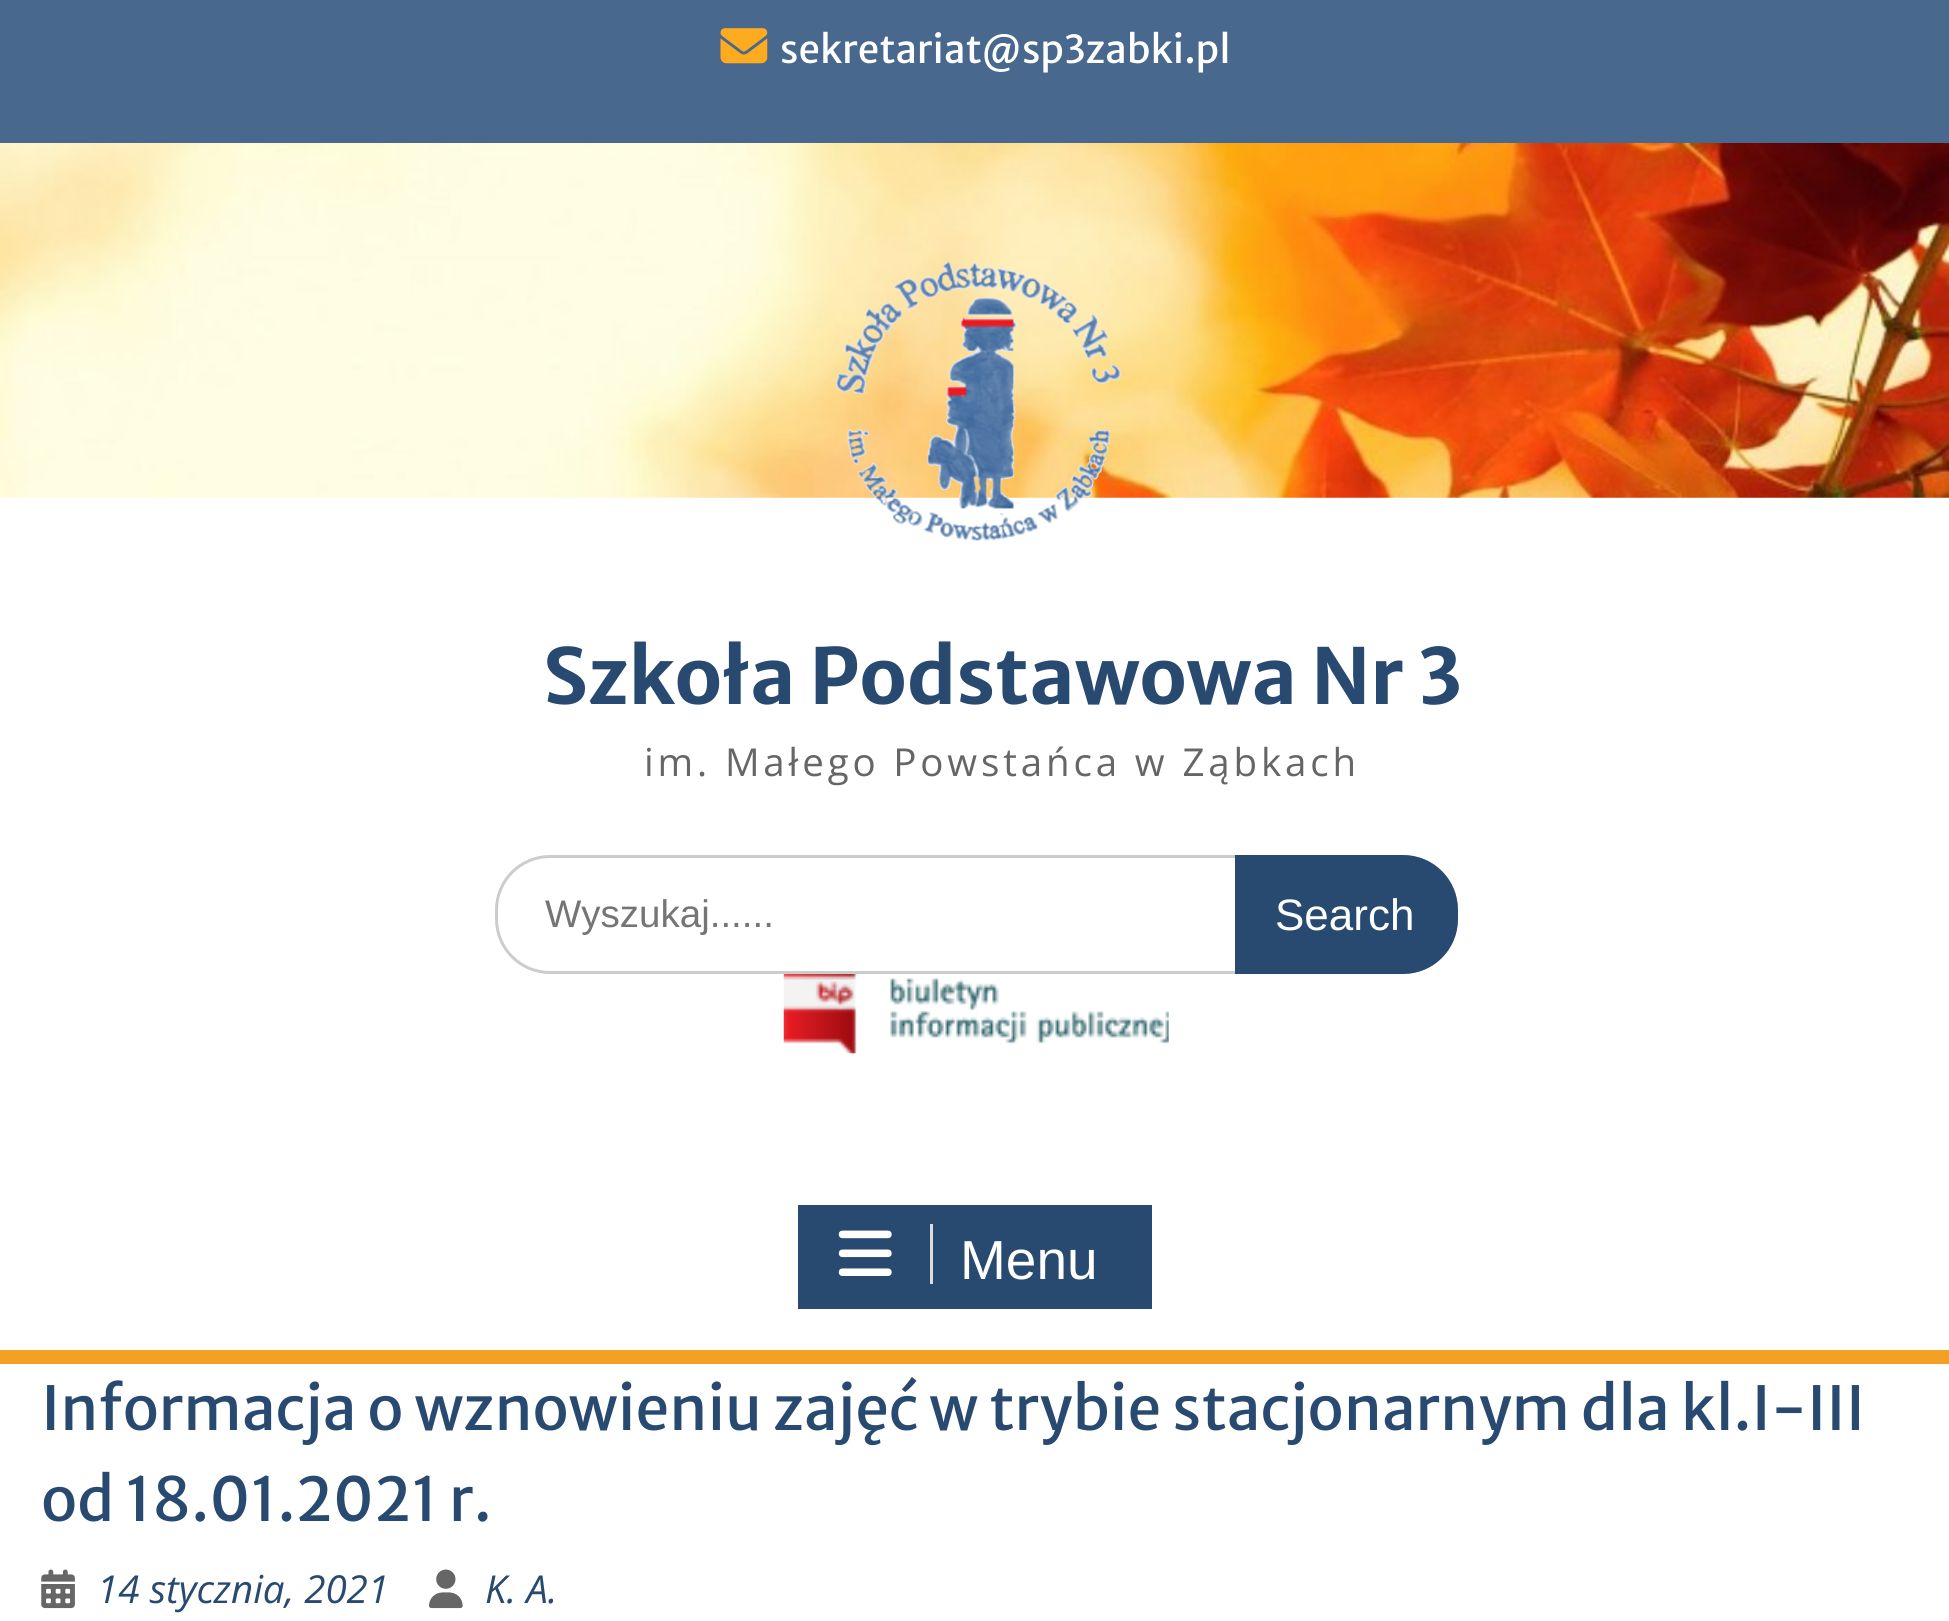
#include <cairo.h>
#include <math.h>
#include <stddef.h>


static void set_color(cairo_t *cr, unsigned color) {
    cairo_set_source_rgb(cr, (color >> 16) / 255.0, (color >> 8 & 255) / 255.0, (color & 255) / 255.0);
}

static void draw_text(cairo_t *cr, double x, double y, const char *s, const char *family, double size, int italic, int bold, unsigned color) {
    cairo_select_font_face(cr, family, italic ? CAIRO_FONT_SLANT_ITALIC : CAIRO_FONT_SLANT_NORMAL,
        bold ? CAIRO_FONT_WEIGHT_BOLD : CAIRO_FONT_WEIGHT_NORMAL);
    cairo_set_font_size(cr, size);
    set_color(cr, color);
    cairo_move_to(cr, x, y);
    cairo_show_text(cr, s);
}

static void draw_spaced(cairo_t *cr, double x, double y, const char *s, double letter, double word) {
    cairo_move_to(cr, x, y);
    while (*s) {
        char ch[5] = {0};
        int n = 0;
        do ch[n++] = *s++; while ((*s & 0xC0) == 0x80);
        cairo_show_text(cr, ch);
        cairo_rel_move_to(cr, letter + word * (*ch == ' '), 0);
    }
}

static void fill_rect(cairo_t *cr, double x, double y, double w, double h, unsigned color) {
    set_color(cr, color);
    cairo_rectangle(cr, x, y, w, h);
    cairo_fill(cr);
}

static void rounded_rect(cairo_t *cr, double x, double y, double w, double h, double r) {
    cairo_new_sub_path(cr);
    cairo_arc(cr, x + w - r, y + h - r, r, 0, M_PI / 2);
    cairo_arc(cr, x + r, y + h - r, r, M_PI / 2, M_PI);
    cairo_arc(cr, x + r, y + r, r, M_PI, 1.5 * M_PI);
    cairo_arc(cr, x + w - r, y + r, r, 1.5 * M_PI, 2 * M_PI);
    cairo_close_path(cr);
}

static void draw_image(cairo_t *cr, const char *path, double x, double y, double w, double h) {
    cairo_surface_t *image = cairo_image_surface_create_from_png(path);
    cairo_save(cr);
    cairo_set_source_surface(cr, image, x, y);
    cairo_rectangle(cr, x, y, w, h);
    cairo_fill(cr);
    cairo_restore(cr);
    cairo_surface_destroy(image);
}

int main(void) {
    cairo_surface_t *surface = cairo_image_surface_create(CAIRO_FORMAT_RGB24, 1949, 1621);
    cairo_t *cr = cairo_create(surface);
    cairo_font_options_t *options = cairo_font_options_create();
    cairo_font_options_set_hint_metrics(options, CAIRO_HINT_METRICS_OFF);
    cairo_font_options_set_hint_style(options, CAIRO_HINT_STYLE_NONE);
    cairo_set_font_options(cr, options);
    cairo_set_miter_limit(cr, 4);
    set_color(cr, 0xFFFFFF);
    cairo_paint(cr);
    fill_rect(cr, 0, 0, 1949, 143, 0x49688E);
    draw_image(cr, "assets/img1.png", 720, 28, 48, 36);
    draw_text(cr, 780, 63, "sekretariat@sp3zabki.pl", "Merriweather Sans", 38.5, 0, 0, 0xFFFFFF);
    draw_image(cr, "assets/img2.png", 0, 143, 1949, 355);
    draw_image(cr, "assets/img3.png", 835, 261, 287, 280);
    draw_text(cr, 543, 704, "Szkoła Podstawowa Nr 3", "Merriweather Sans", 77, 0, 1, 0x294A70);
    cairo_select_font_face(cr, "Open Sans", CAIRO_FONT_SLANT_NORMAL, CAIRO_FONT_WEIGHT_NORMAL);
    cairo_set_font_size(cr, 38.5);
    set_color(cr, 0x666666);
    draw_spaced(cr, 644, 776, "im. Małego Powstańca w Ząbkach", 3.85, 0);
    rounded_rect(cr, 496.5, 856.5, 960, 116, 53.5);
    set_color(cr, 0xCCCCCC);
    cairo_set_line_width(cr, 3);
    cairo_stroke(cr);
    draw_text(cr, 545, 927, "Wyszukaj......", "Liberation Sans", 38.5, 0, 0, 0x757575);
    set_color(cr, 0x294A70);
    cairo_new_path(cr);
    cairo_move_to(cr, 1235, 855);
    cairo_line_to(cr, 1403, 855);
    cairo_curve_to(cr, 1433.5, 855, 1458, 879.5, 1458, 910);
    cairo_line_to(cr, 1458, 919);
    cairo_curve_to(cr, 1458, 949.5, 1433.5, 974, 1403, 974);
    cairo_line_to(cr, 1235, 974);
    cairo_close_path(cr);
    cairo_fill(cr);
    draw_text(cr, 1275, 930, "Search", "Liberation Sans", 44, 0, 0, 0xFFFFFF);
    draw_image(cr, "assets/img4.png", 783, 974, 386, 80);
    fill_rect(cr, 0, 1350, 1949, 14, 0xF4A024);
    fill_rect(cr, 798, 1205, 354, 104, 0x294A70);
    fill_rect(cr, 930, 1224, 3, 60, 0xDDDDDD);
    draw_image(cr, "assets/img5.png", 838, 1230, 54, 46);
    draw_text(cr, 960, 1279, "Menu", "Liberation Sans", 55, 0, 0, 0xFFFFFF);
    draw_text(cr, 41, 1430, "Informacja o wznowieniu zajęć w trybie stacjonarnym dla kl.I-III", "Merriweather Sans", 60.5, 0, 0, 0x294A70);
    draw_text(cr, 41, 1521, "od 18.01.2021 r.", "Merriweather Sans", 60.5, 0, 0, 0x294A70);
    draw_image(cr, "assets/img6.png", 41, 1569, 34, 40);
    draw_text(cr, 97, 1603, "14 stycznia, 2021", "Open Sans", 38.5, 1, 0, 0x294A70);
    draw_image(cr, "assets/img7.png", 429, 1569, 34, 40);
    draw_text(cr, 485, 1603, "K. A.", "Open Sans", 38.5, 1, 0, 0x294A70);
    cairo_surface_write_to_png(surface, "output.png");
    cairo_font_options_destroy(options);
    cairo_destroy(cr);
    cairo_surface_destroy(surface);
    return 0;
}
